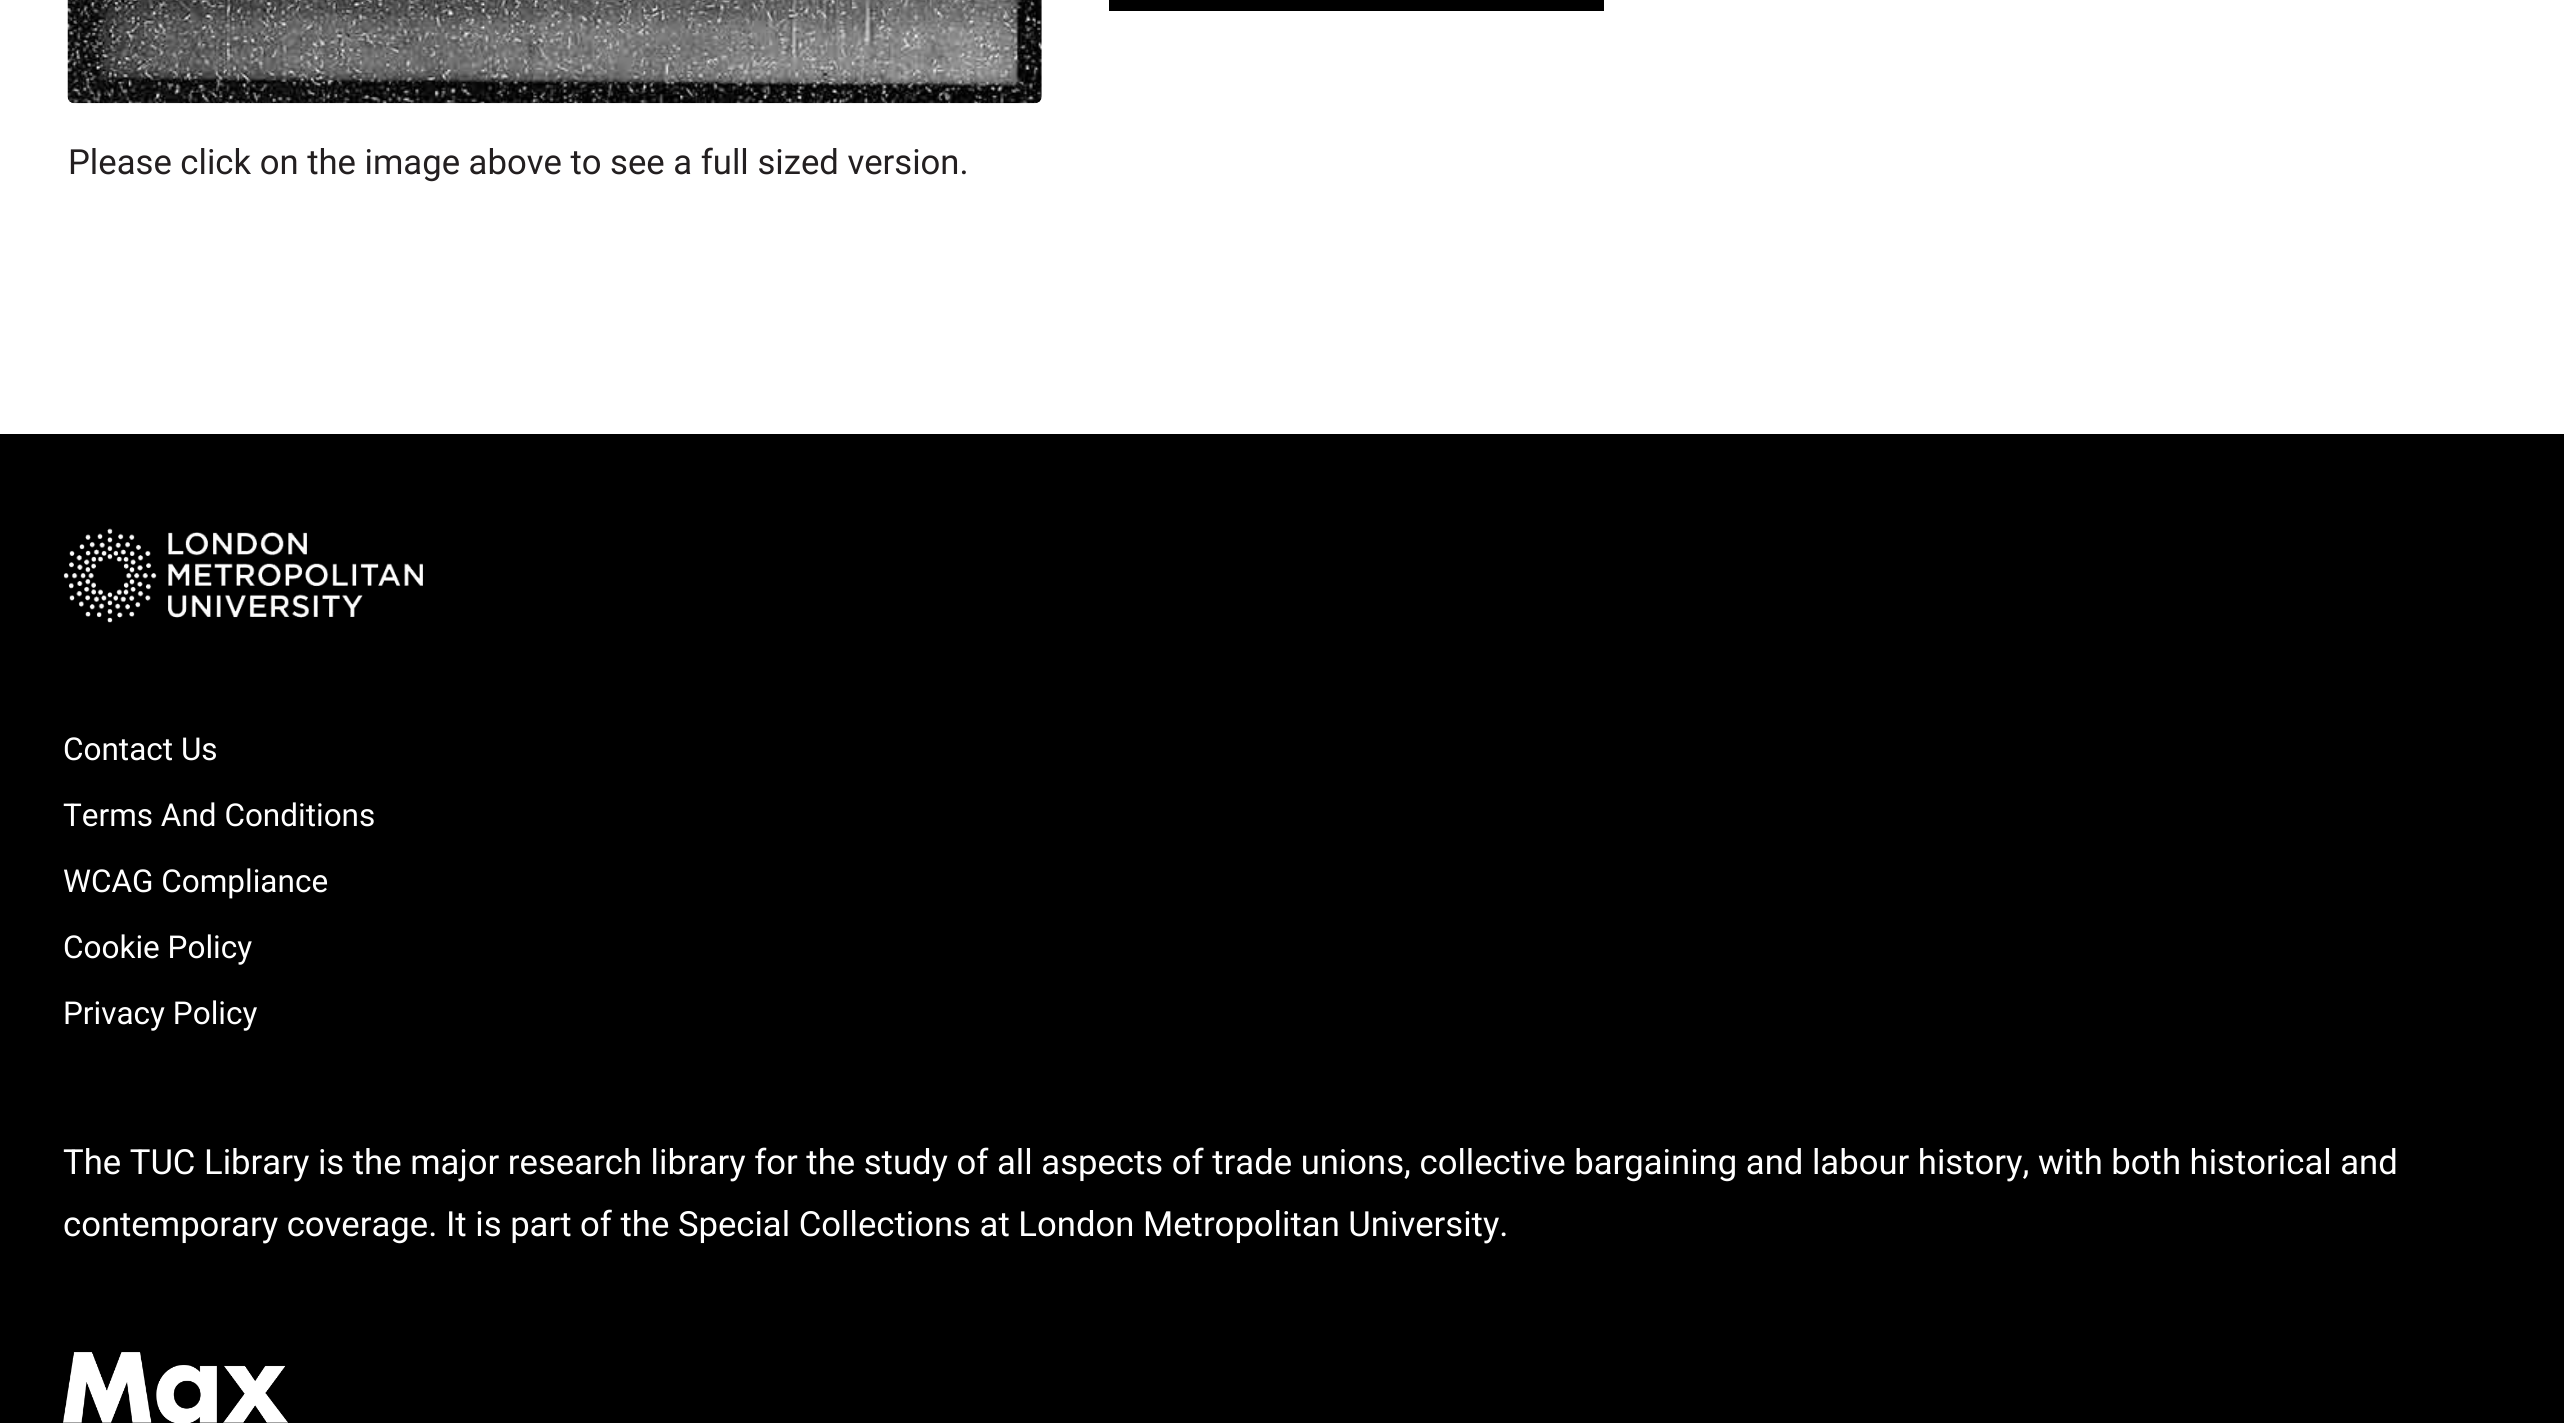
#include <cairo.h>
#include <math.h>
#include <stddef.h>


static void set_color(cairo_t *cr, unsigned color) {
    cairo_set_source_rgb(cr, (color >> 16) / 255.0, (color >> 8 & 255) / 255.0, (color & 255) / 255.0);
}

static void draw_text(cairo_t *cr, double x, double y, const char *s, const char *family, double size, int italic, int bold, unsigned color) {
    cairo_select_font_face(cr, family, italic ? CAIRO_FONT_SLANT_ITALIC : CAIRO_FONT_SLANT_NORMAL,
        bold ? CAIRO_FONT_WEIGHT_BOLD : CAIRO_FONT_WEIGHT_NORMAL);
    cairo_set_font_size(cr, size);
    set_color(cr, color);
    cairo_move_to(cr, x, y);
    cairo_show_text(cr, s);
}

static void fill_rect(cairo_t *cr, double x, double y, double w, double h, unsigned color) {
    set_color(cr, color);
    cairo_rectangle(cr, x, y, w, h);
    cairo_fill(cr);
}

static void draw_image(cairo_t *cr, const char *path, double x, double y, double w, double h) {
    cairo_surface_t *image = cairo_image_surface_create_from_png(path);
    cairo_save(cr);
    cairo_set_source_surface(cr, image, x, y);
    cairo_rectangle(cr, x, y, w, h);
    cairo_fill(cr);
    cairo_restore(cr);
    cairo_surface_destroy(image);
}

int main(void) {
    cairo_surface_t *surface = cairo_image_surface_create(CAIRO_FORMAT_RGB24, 2564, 1423);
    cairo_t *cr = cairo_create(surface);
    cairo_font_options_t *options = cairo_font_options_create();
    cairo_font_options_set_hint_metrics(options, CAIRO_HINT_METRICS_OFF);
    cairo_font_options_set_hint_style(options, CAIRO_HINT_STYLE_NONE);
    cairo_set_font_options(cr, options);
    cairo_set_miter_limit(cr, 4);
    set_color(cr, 0xFFFFFF);
    cairo_paint(cr);
    fill_rect(cr, 1109, 0, 495, 11, 0x000000);
    draw_image(cr, "assets/img1.png", 67, 0, 975, 104);
    draw_text(cr, 68, 174, "Please click on the image above to see a full sized version.", "Roboto", 34.65, 0, 0, 0x231F20);
    fill_rect(cr, 0, 434, 2564, 989, 0x000000);
    draw_image(cr, "assets/img2.png", 63, 528, 360, 95);
    draw_text(cr, 63, 760, "Contact Us", "Roboto", 31.5, 0, 0, 0xFFFFFF);
    draw_text(cr, 63, 826, "Terms And Conditions", "Roboto", 31.5, 0, 0, 0xFFFFFF);
    draw_text(cr, 63, 892, "WCAG Compliance", "Roboto", 31.5, 0, 0, 0xFFFFFF);
    draw_text(cr, 63, 958, "Cookie Policy", "Roboto", 31.5, 0, 0, 0xFFFFFF);
    draw_text(cr, 63, 1024, "Privacy Policy", "Roboto", 31.5, 0, 0, 0xFFFFFF);
    draw_text(cr, 63, 1174, "The TUC Library is the major research library for the study of all aspects of trade unions, collective bargaining and labour history, with both historical and", "Roboto", 34.65, 0, 0, 0xFFFFFF);
    draw_text(cr, 63, 1236, "contemporary coverage. It is part of the Special Collections at London Metropolitan University.", "Roboto", 34.65, 0, 0, 0xFFFFFF);
    draw_image(cr, "assets/img3.png", 63, 1352, 225, 71);
    cairo_surface_write_to_png(surface, "output.png");
    cairo_font_options_destroy(options);
    cairo_destroy(cr);
    cairo_surface_destroy(surface);
    return 0;
}
